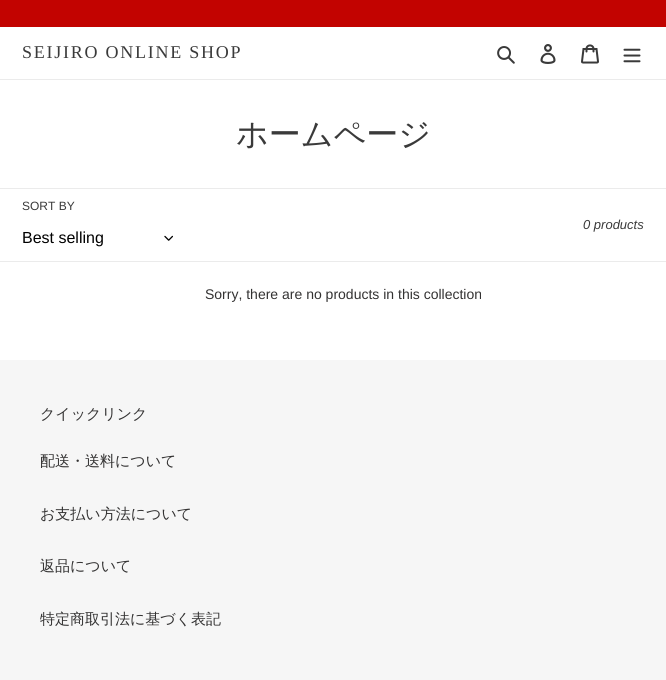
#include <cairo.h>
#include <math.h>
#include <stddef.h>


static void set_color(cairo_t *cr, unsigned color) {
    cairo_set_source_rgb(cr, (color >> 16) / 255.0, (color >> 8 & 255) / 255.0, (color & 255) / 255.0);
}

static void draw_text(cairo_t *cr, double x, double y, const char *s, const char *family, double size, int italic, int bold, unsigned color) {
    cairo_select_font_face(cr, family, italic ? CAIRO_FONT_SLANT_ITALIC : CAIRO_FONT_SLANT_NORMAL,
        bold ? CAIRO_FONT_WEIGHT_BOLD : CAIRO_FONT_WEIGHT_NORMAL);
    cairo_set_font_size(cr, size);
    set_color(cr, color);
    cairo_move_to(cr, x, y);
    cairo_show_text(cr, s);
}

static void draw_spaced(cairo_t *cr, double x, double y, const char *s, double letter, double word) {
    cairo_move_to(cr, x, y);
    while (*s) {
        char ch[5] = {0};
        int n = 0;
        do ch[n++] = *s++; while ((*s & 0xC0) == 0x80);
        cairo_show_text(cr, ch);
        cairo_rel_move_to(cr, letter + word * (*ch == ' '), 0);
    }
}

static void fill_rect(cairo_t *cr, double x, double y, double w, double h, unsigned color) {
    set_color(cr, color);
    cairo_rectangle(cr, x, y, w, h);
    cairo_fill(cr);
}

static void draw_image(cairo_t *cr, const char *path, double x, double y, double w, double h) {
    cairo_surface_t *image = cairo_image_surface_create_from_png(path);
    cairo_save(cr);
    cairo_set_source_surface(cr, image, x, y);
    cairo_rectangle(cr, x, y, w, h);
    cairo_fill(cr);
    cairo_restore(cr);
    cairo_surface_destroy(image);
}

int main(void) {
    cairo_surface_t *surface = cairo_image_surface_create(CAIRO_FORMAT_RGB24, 666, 680);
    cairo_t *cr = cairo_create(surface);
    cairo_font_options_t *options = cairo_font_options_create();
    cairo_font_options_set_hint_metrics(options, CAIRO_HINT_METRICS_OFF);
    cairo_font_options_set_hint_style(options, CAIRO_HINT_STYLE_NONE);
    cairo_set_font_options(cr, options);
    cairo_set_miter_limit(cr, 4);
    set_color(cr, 0xFFFFFF);
    cairo_paint(cr);
    fill_rect(cr, 0, 0, 666, 27, 0xC20300);
    fill_rect(cr, 0, 79, 666, 1, 0xEBEBEB);
    cairo_select_font_face(cr, "Liberation Serif", CAIRO_FONT_SLANT_NORMAL, CAIRO_FONT_WEIGHT_NORMAL);
    cairo_set_font_size(cr, 18);
    set_color(cr, 0x3A3A3A);
    draw_spaced(cr, 22, 58, "SEIJIRO ONLINE SHOP", 1.75, 0);
    draw_image(cr, "assets/img1.png", 497, 46, 18, 18);
    draw_image(cr, "assets/img2.png", 540, 44, 16, 20);
    draw_image(cr, "assets/img3.png", 581, 44, 18, 20);
    draw_image(cr, "assets/img4.png", 623, 48, 18, 15);
    draw_text(cr, 236, 145, "ホームページ", "WenQuanYi Zen Hei Medium", 32, 0, 0, 0x3A3A3A);
    fill_rect(cr, 0, 188, 666, 1, 0xEBEBEB);
    fill_rect(cr, 0, 261, 666, 1, 0xEBEBEB);
    draw_text(cr, 22, 210, "SORT BY", "Liberation Sans", 12, 0, 0, 0x3A3A3A);
    draw_text(cr, 22, 243, "Best selling", "Liberation Sans", 16, 0, 0, 0x000000);
    draw_image(cr, "assets/img5.png", 164, 235, 9, 6);
    draw_text(cr, 583, 229, "0 products", "Liberation Sans", 13, 1, 0, 0x3A3A3A);
    draw_text(cr, 205, 299, "Sorry, there are no products in this collection", "Liberation Sans", 14, 0, 0, 0x333232);
    fill_rect(cr, 0, 360, 666, 320, 0xF6F6F6);
    draw_text(cr, 40, 419, "クイックリンク", "WenQuanYi Zen Hei Medium", 15, 0, 0, 0x333232);
    draw_text(cr, 40, 466, "配送・送料について", "WenQuanYi Zen Hei Medium", 15, 0, 0, 0x333232);
    draw_text(cr, 40, 519, "お支払い方法について", "WenQuanYi Zen Hei Medium", 15, 0, 0, 0x333232);
    draw_text(cr, 40, 571, "返品について", "WenQuanYi Zen Hei Medium", 15, 0, 0, 0x333232);
    draw_text(cr, 40, 624, "特定商取引法に基づく表記", "WenQuanYi Zen Hei Medium", 15, 0, 0, 0x333232);
    cairo_surface_write_to_png(surface, "output.png");
    cairo_font_options_destroy(options);
    cairo_destroy(cr);
    cairo_surface_destroy(surface);
    return 0;
}
